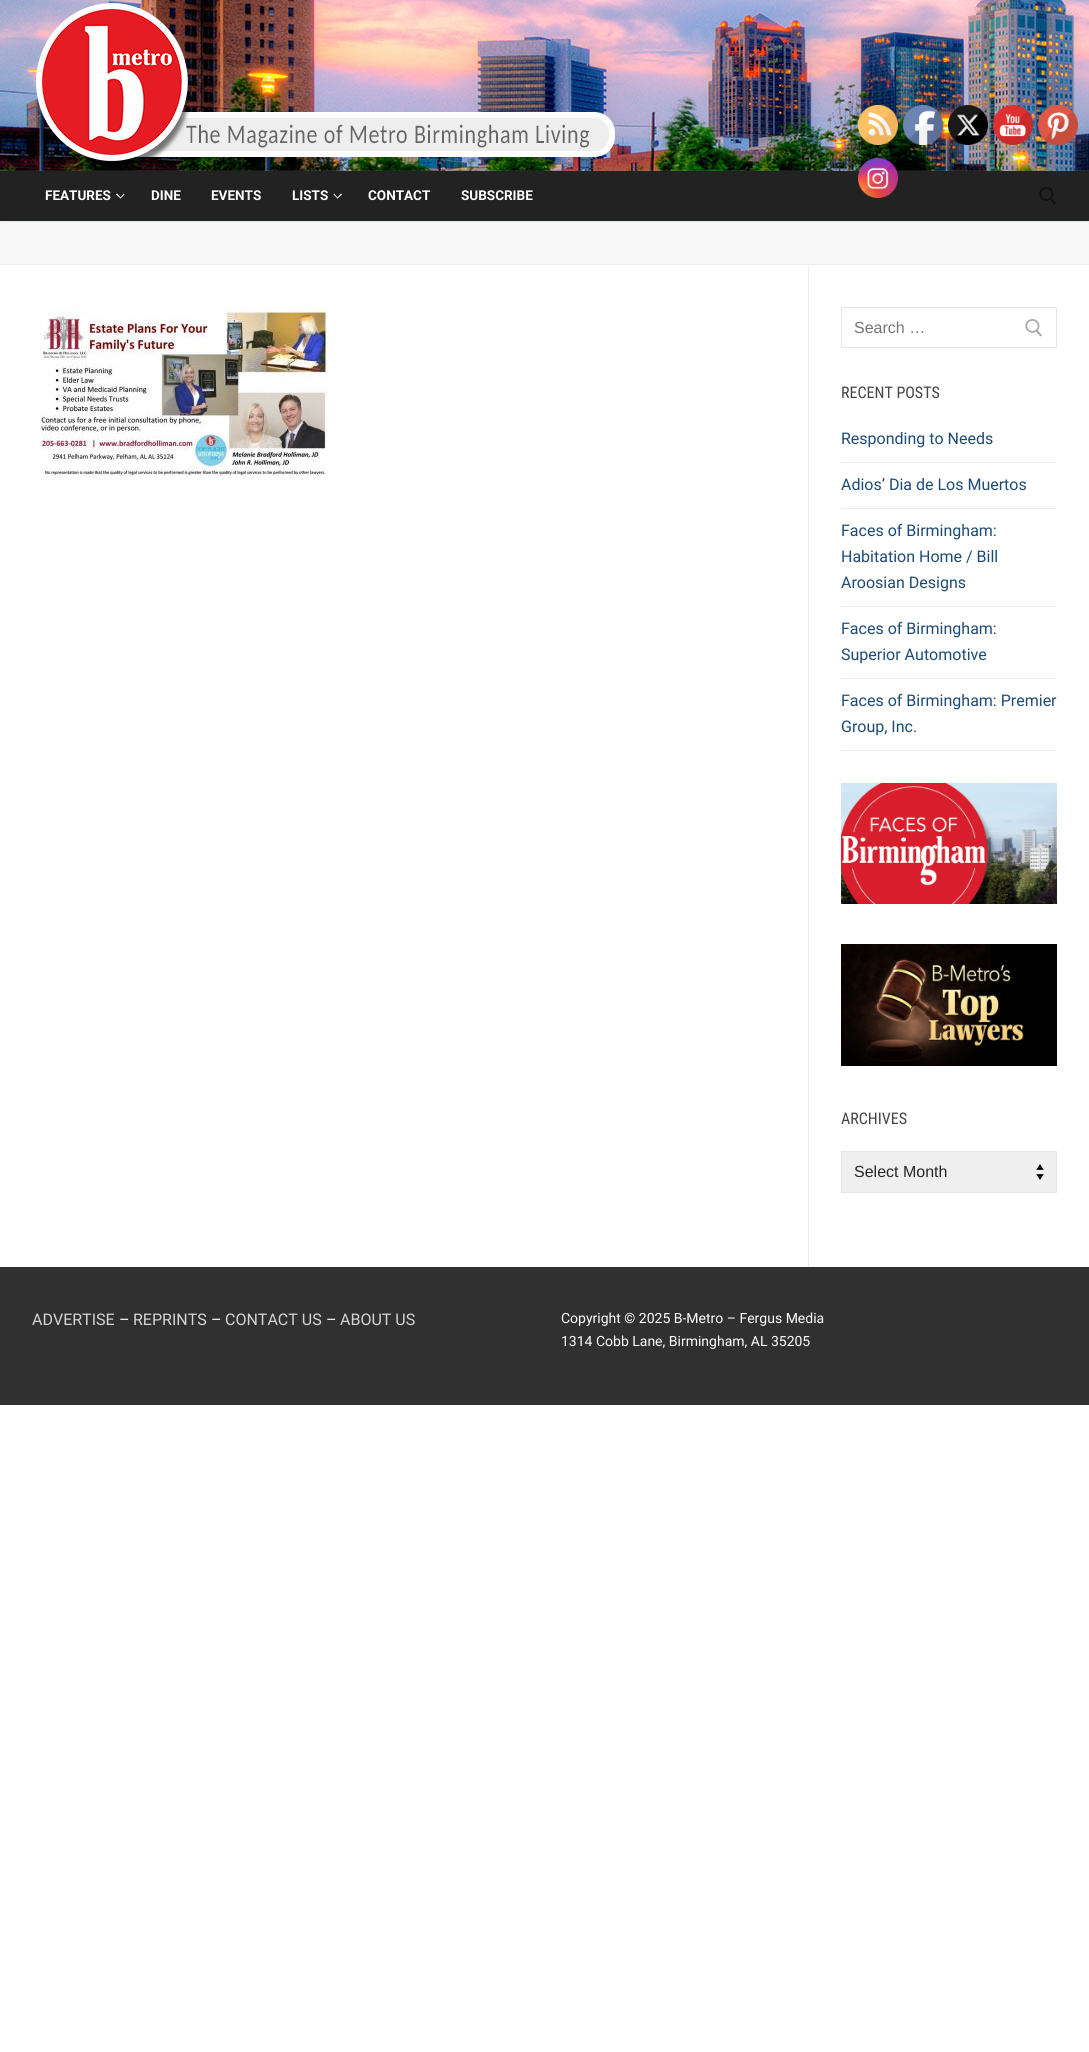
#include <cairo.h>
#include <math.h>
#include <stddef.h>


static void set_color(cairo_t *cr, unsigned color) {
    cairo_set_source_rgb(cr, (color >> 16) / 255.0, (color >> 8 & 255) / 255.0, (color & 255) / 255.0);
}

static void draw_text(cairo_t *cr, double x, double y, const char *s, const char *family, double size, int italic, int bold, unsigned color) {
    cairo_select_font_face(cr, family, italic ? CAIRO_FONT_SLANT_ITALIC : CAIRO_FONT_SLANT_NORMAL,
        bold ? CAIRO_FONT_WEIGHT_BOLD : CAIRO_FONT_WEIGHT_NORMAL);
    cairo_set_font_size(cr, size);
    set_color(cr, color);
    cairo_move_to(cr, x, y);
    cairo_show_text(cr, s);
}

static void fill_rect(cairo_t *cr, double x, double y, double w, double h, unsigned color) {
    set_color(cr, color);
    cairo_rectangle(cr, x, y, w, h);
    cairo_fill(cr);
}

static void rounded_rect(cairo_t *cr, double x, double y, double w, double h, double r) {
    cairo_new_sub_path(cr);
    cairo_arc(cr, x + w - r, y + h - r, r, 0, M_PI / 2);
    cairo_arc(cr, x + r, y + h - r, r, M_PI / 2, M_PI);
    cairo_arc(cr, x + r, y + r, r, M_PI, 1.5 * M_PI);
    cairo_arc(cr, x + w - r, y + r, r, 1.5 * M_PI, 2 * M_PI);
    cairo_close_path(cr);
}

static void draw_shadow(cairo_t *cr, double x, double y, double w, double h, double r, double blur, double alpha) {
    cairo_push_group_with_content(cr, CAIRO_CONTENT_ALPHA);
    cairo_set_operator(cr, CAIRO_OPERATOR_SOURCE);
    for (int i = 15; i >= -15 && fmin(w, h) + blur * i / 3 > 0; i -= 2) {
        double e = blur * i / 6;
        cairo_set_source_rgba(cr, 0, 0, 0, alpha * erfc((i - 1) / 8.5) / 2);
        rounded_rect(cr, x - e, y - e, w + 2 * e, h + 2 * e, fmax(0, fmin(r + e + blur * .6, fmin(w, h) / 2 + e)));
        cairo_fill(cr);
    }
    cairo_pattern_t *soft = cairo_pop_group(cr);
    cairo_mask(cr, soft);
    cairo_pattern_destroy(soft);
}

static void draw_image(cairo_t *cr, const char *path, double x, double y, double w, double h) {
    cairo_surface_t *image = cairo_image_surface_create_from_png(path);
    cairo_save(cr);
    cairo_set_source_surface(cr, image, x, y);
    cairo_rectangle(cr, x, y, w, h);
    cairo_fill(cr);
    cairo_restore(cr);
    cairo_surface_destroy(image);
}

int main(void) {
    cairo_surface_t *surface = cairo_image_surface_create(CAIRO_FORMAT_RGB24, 1089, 2052);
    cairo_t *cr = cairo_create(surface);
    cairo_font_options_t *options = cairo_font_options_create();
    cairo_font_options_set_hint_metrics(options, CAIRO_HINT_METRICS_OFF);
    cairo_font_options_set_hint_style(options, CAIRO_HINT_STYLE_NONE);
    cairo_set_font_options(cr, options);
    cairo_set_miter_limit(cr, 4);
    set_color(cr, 0xFFFFFF);
    cairo_paint(cr);
    draw_image(cr, "assets/img7.png", 0, 0, 1089, 171);
    draw_image(cr, "assets/img1.png", 858, 105, 40, 40);
    draw_image(cr, "assets/img2.png", 903, 105, 40, 40);
    draw_image(cr, "assets/img3.png", 948, 105, 40, 40);
    draw_image(cr, "assets/img4.png", 993, 105, 40, 40);
    draw_image(cr, "assets/img5.png", 1038, 105, 40, 40);
    fill_rect(cr, 0, 221, 1089, 43, 0xF9F9F9);
    set_color(cr, 0xE1E5EA);
    draw_shadow(cr, 0, 172, 1089, 50, 0, 1, 1);
    fill_rect(cr, 0, 171, 1089, 50, 0x222222);
    draw_image(cr, "assets/img6.png", 858, 158, 40, 40);
    draw_image(cr, "assets/img8.png", 36, 3, 579, 162);
    draw_text(cr, 45, 200, "FEATURES", "Roboto", 13.5, 0, 1, 0xFFFFFF);
    cairo_new_path(cr);
    cairo_move_to(cr, 120.5, 198.5);
    cairo_line_to(cr, 116, 194.5);
    cairo_line_to(cr, 117, 193.5);
    cairo_line_to(cr, 121, 198);
    cairo_close_path(cr);
    cairo_fill(cr);
    cairo_new_path(cr);
    cairo_move_to(cr, 120.5, 198.5);
    cairo_line_to(cr, 120, 198);
    cairo_line_to(cr, 124, 193.5);
    cairo_line_to(cr, 124.5, 194.5);
    cairo_close_path(cr);
    cairo_fill(cr);
    draw_text(cr, 151, 200, "DINE", "Roboto", 13.5, 0, 1, 0xFFFFFF);
    draw_text(cr, 211, 200, "EVENTS", "Roboto", 13.5, 0, 1, 0xFFFFFF);
    draw_text(cr, 292, 200, "LISTS", "Roboto", 13.5, 0, 1, 0xFFFFFF);
    cairo_new_path(cr);
    cairo_move_to(cr, 337.5, 198.5);
    cairo_line_to(cr, 333.5, 194.5);
    cairo_line_to(cr, 334, 193.5);
    cairo_line_to(cr, 338, 198);
    cairo_close_path(cr);
    cairo_fill(cr);
    cairo_new_path(cr);
    cairo_move_to(cr, 337.5, 198.5);
    cairo_line_to(cr, 337, 198);
    cairo_line_to(cr, 341, 193.5);
    cairo_line_to(cr, 342, 194.5);
    cairo_close_path(cr);
    cairo_fill(cr);
    draw_text(cr, 368, 200, "CONTACT", "Roboto", 13.5, 0, 1, 0xFFFFFF);
    draw_text(cr, 461, 200, "SUBSCRIBE", "Roboto", 13.5, 0, 1, 0xFFFFFF);
    draw_image(cr, "assets/img9.png", 1039, 187, 17, 18);
    fill_rect(cr, 0, 264, 1089, 1, 0xEAECEE);
    fill_rect(cr, 808, 265, 1, 1002, 0xEAECEE);
    draw_image(cr, "assets/img10.png", 32, 307, 300, 168);
    rounded_rect(cr, 841.5, 307.5, 215, 40, 0.5);
    set_color(cr, 0xE5E5E5);
    cairo_set_line_width(cr, 1);
    cairo_stroke(cr);
    draw_text(cr, 854, 333, "Search …", "Liberation Sans", 16, 0, 0, 0x757575);
    draw_image(cr, "assets/img11.png", 1025, 319, 17, 18);
    draw_text(cr, 841, 398, "RECENT POSTS", "Roboto Condensed", 16, 0, 0, 0x444444);
    fill_rect(cr, 841, 462, 216, 1, 0xEAECEE);
    draw_text(cr, 841, 444, "Responding to Needs", "Roboto", 16, 0, 0, 0x1E4B75);
    fill_rect(cr, 841, 508, 216, 1, 0xEAECEE);
    draw_text(cr, 841, 490, "Adios’ Dia de Los Muertos", "Roboto", 16, 0, 0, 0x1E4B75);
    fill_rect(cr, 841, 606, 216, 1, 0xEAECEE);
    draw_text(cr, 841, 536, "Faces of Birmingham:", "Roboto", 16, 0, 0, 0x1E4B75);
    draw_text(cr, 841, 562, "Habitation Home / Bill", "Roboto", 16, 0, 0, 0x1E4B75);
    draw_text(cr, 841, 588, "Aroosian Designs", "Roboto", 16, 0, 0, 0x1E4B75);
    fill_rect(cr, 841, 678, 216, 1, 0xEAECEE);
    draw_text(cr, 841, 634, "Faces of Birmingham:", "Roboto", 16, 0, 0, 0x1E4B75);
    draw_text(cr, 841, 660, "Superior Automotive", "Roboto", 16, 0, 0, 0x1E4B75);
    fill_rect(cr, 841, 750, 216, 1, 0xEAECEE);
    draw_text(cr, 841, 706, "Faces of Birmingham: Premier", "Roboto", 16, 0, 0, 0x1E4B75);
    draw_text(cr, 841, 732, "Group, Inc.", "Roboto", 16, 0, 0, 0x1E4B75);
    draw_image(cr, "assets/img12.png", 841, 783, 216, 121);
    draw_image(cr, "assets/img13.png", 841, 944, 216, 122);
    draw_text(cr, 841, 1124, "ARCHIVES", "Roboto Condensed", 16, 0, 0, 0x444444);
    set_color(cr, 0xEFEFEF);
    rounded_rect(cr, 841, 1151, 216, 42, 1);
    cairo_fill(cr);
    draw_image(cr, "assets/img14.png", 1036, 1164, 8, 16);
    rounded_rect(cr, 841.5, 1151.5, 215, 41, 0.5);
    set_color(cr, 0xE5E5E5);
    cairo_stroke(cr);
    draw_text(cr, 854, 1177, "Select Month", "Liberation Sans", 16, 0, 0, 0x282828);
    fill_rect(cr, 0, 1267, 1089, 138, 0x303030);
    draw_text(cr, 32, 1325, "ADVERTISE", "Roboto", 16, 0, 0, 0xD4D4D4);
    draw_text(cr, 119, 1325, "–", "Roboto", 16, 0, 0, 0xFFFFFF);
    draw_text(cr, 133, 1325, "REPRINTS", "Roboto", 16, 0, 0, 0xD4D4D4);
    draw_text(cr, 211, 1325, "–", "Roboto", 16, 0, 0, 0xFFFFFF);
    draw_text(cr, 225, 1325, "CONTACT US", "Roboto", 16, 0, 0, 0xD4D4D4);
    draw_text(cr, 326, 1325, "–", "Roboto", 16, 0, 0, 0xFFFFFF);
    draw_text(cr, 340, 1325, "ABOUT US", "Roboto", 16, 0, 0, 0xD4D4D4);
    draw_text(cr, 561, 1323, "Copyright © 2025 B-Metro – Fergus Media", "Roboto", 14, 0, 0, 0xFFFFFF);
    draw_text(cr, 561, 1346, "1314 Cobb Lane, Birmingham, AL 35205", "Roboto", 14, 0, 0, 0xFFFFFF);
    cairo_surface_write_to_png(surface, "output.png");
    cairo_font_options_destroy(options);
    cairo_destroy(cr);
    cairo_surface_destroy(surface);
    return 0;
}
